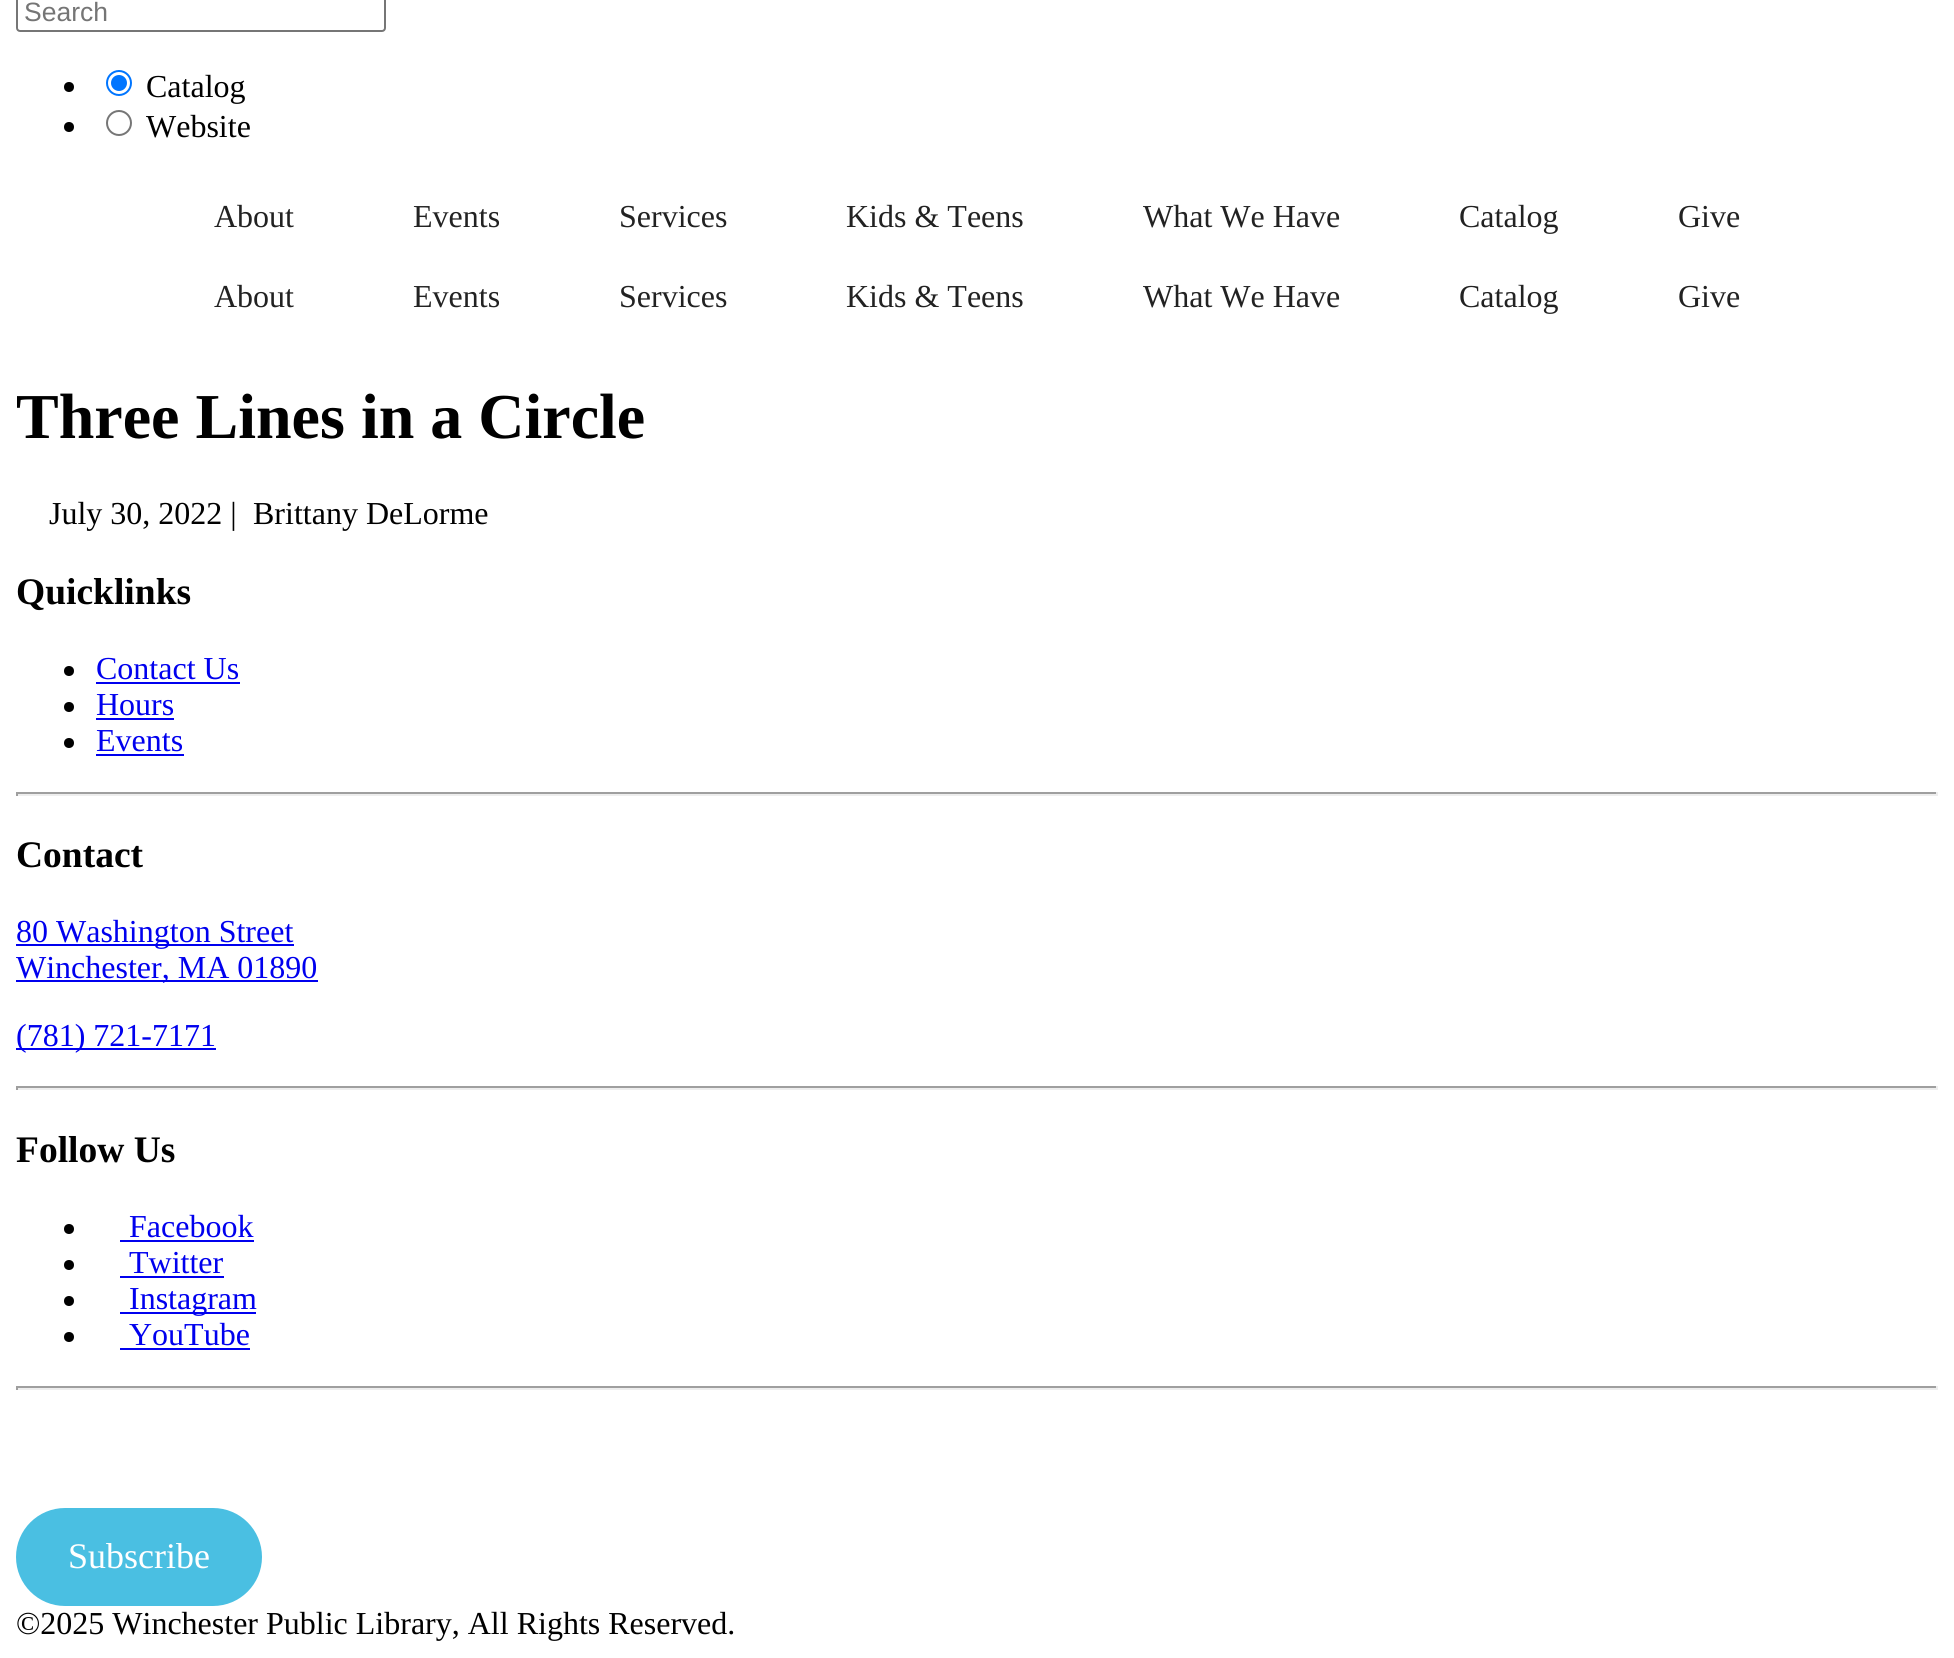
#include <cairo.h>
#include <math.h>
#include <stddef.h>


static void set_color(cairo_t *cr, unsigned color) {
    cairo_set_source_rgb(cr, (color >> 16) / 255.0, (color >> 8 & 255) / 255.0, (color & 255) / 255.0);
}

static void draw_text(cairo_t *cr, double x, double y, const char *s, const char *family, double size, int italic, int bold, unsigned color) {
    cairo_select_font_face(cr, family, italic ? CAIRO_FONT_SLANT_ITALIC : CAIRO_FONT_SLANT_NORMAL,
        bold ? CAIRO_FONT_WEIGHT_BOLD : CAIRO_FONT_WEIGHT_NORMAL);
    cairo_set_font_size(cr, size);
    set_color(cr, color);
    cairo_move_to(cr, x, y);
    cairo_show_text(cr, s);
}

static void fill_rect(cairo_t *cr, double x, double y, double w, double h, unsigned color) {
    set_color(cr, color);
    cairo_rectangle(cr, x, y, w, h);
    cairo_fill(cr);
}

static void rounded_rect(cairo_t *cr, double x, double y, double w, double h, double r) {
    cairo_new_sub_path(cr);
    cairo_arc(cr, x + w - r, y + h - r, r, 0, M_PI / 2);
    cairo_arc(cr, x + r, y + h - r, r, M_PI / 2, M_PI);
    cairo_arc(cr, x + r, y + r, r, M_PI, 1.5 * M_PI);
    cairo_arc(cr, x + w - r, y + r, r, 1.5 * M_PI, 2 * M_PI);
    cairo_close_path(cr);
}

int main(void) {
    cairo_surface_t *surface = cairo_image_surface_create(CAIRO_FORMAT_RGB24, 1954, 1658);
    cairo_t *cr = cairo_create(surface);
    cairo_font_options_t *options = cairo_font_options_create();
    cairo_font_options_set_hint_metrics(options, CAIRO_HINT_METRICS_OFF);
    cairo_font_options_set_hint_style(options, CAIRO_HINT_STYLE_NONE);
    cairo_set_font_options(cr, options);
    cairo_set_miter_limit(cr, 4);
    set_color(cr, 0xFFFFFF);
    cairo_paint(cr);
    rounded_rect(cr, 17, -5, 368, 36, 3);
    set_color(cr, 0x767676);
    cairo_stroke(cr);
    draw_text(cr, 24, 21, "Search", "Liberation Sans", 26.5, 0, 0, 0x757575);
    set_color(cr, 0x000000);
    cairo_new_path(cr);
    cairo_arc(cr, 69, 87, 5, 0, 2 * M_PI);
    cairo_fill(cr);
    cairo_arc(cr, 119, 83, 12, 0, 2 * M_PI);
    set_color(cr, 0x0075FF);
    cairo_stroke(cr);
    cairo_arc(cr, 119, 83, 8, 0, 2 * M_PI);
    cairo_fill(cr);
    draw_text(cr, 146, 97, "Catalog", "Liberation Serif", 32, 0, 0, 0x000000);
    cairo_new_path(cr);
    cairo_arc(cr, 69, 127, 5, 0, 2 * M_PI);
    cairo_fill(cr);
    cairo_arc(cr, 119, 123, 12, 0, 2 * M_PI);
    set_color(cr, 0x767676);
    cairo_stroke(cr);
    draw_text(cr, 146, 137, "Website", "Liberation Serif", 32, 0, 0, 0x000000);
    draw_text(cr, 214, 227, "About", "Liberation Serif", 32, 0, 0, 0x222222);
    draw_text(cr, 413, 227, "Events", "Liberation Serif", 32, 0, 0, 0x222222);
    draw_text(cr, 619, 227, "Services", "Liberation Serif", 32, 0, 0, 0x222222);
    draw_text(cr, 846, 227, "Kids & Teens", "Liberation Serif", 32, 0, 0, 0x222222);
    draw_text(cr, 1143, 227, "What We Have", "Liberation Serif", 32, 0, 0, 0x222222);
    draw_text(cr, 1459, 227, "Catalog", "Liberation Serif", 32, 0, 0, 0x222222);
    draw_text(cr, 1678, 227, "Give", "Liberation Serif", 32, 0, 0, 0x222222);
    draw_text(cr, 214, 307, "About", "Liberation Serif", 32, 0, 0, 0x222222);
    draw_text(cr, 413, 307, "Events", "Liberation Serif", 32, 0, 0, 0x222222);
    draw_text(cr, 619, 307, "Services", "Liberation Serif", 32, 0, 0, 0x222222);
    draw_text(cr, 846, 307, "Kids & Teens", "Liberation Serif", 32, 0, 0, 0x222222);
    draw_text(cr, 1143, 307, "What We Have", "Liberation Serif", 32, 0, 0, 0x222222);
    draw_text(cr, 1459, 307, "Catalog", "Liberation Serif", 32, 0, 0, 0x222222);
    draw_text(cr, 1678, 307, "Give", "Liberation Serif", 32, 0, 0, 0x222222);
    draw_text(cr, 16, 438, "Three Lines in a Circle", "Liberation Serif", 64, 0, 1, 0x000000);
    draw_text(cr, 49, 524, "July 30, 2022 |", "Liberation Serif", 32, 0, 0, 0x000000);
    draw_text(cr, 253, 524, "Brittany DeLorme", "Liberation Serif", 32, 0, 0, 0x000000);
    draw_text(cr, 16, 604, "Quicklinks", "Liberation Serif", 37.5, 0, 1, 0x000000);
    cairo_new_path(cr);
    cairo_arc(cr, 69, 671, 5, 0, 2 * M_PI);
    cairo_fill(cr);
    draw_text(cr, 96, 679, "Contact Us", "Liberation Serif", 32, 0, 0, 0x0000EE);
    fill_rect(cr, 96, 682, 144, 2, 0x0000EE);
    set_color(cr, 0x000000);
    cairo_new_path(cr);
    cairo_arc(cr, 69, 707, 5, 0, 2 * M_PI);
    cairo_fill(cr);
    draw_text(cr, 96, 715, "Hours", "Liberation Serif", 32, 0, 0, 0x0000EE);
    fill_rect(cr, 96, 718, 78, 2, 0x0000EE);
    set_color(cr, 0x000000);
    cairo_new_path(cr);
    cairo_arc(cr, 69, 743, 5, 0, 2 * M_PI);
    cairo_fill(cr);
    draw_text(cr, 96, 751, "Events", "Liberation Serif", 32, 0, 0, 0x0000EE);
    fill_rect(cr, 96, 754, 88, 2, 0x0000EE);
    fill_rect(cr, 16, 792, 1922, 2, 0x9F9F9F);
    fill_rect(cr, 1936, 792, 2, 4, 0xEEEEEE);
    fill_rect(cr, 16, 794, 1922, 2, 0xEEEEEE);
    fill_rect(cr, 16, 792, 2, 4, 0x9F9F9F);
    draw_text(cr, 16, 867, "Contact", "Liberation Serif", 37.5, 0, 1, 0x000000);
    fill_rect(cr, 16, 944, 278, 2, 0x0000EE);
    draw_text(cr, 16, 942, "80 Washington Street", "Liberation Serif", 32, 0, 0, 0x0000EE);
    fill_rect(cr, 16, 980, 302, 2, 0x0000EE);
    draw_text(cr, 16, 978, "Winchester, MA 01890", "Liberation Serif", 32, 0, 0, 0x0000EE);
    fill_rect(cr, 16, 1048, 200, 2, 0x0000EE);
    draw_text(cr, 16, 1046, "(781) 721-7171", "Liberation Serif", 32, 0, 0, 0x0000EE);
    fill_rect(cr, 16, 1086, 1922, 2, 0x9F9F9F);
    fill_rect(cr, 1936, 1086, 2, 4, 0xEEEEEE);
    fill_rect(cr, 16, 1088, 1922, 2, 0xEEEEEE);
    fill_rect(cr, 16, 1086, 2, 4, 0x9F9F9F);
    draw_text(cr, 16, 1162, "Follow Us", "Liberation Serif", 37.5, 0, 1, 0x000000);
    cairo_new_path(cr);
    cairo_arc(cr, 69, 1229, 5, 0, 2 * M_PI);
    cairo_fill(cr);
    draw_text(cr, 129, 1237, "Facebook", "Liberation Serif", 32, 0, 0, 0x0000EE);
    fill_rect(cr, 120, 1240, 134, 2, 0x0000EE);
    set_color(cr, 0x000000);
    cairo_new_path(cr);
    cairo_arc(cr, 69, 1265, 5, 0, 2 * M_PI);
    cairo_fill(cr);
    draw_text(cr, 129, 1273, "Twitter", "Liberation Serif", 32, 0, 0, 0x0000EE);
    fill_rect(cr, 120, 1276, 104, 2, 0x0000EE);
    set_color(cr, 0x000000);
    cairo_new_path(cr);
    cairo_arc(cr, 69, 1301, 5, 0, 2 * M_PI);
    cairo_fill(cr);
    fill_rect(cr, 120, 1312, 136, 2, 0x0000EE);
    draw_text(cr, 129, 1309, "Instagram", "Liberation Serif", 32, 0, 0, 0x0000EE);
    set_color(cr, 0x000000);
    cairo_new_path(cr);
    cairo_arc(cr, 69, 1337, 5, 0, 2 * M_PI);
    cairo_fill(cr);
    draw_text(cr, 129, 1345, "YouTube", "Liberation Serif", 32, 0, 0, 0x0000EE);
    fill_rect(cr, 120, 1348, 130, 2, 0x0000EE);
    fill_rect(cr, 16, 1386, 1922, 2, 0x9F9F9F);
    fill_rect(cr, 1936, 1386, 2, 4, 0xEEEEEE);
    fill_rect(cr, 16, 1388, 1922, 2, 0xEEEEEE);
    fill_rect(cr, 16, 1386, 2, 4, 0x9F9F9F);
    set_color(cr, 0x4ABFE2);
    rounded_rect(cr, 16, 1508, 246, 98, 49);
    cairo_fill(cr);
    draw_text(cr, 68, 1568, "Subscribe", "Liberation Serif", 36, 0, 0, 0xFFFFFF);
    draw_text(cr, 16, 1634, "©2025 Winchester Public Library, All Rights Reserved.", "Liberation Serif", 32, 0, 0, 0x000000);
    cairo_surface_write_to_png(surface, "output.png");
    cairo_font_options_destroy(options);
    cairo_destroy(cr);
    cairo_surface_destroy(surface);
    return 0;
}
